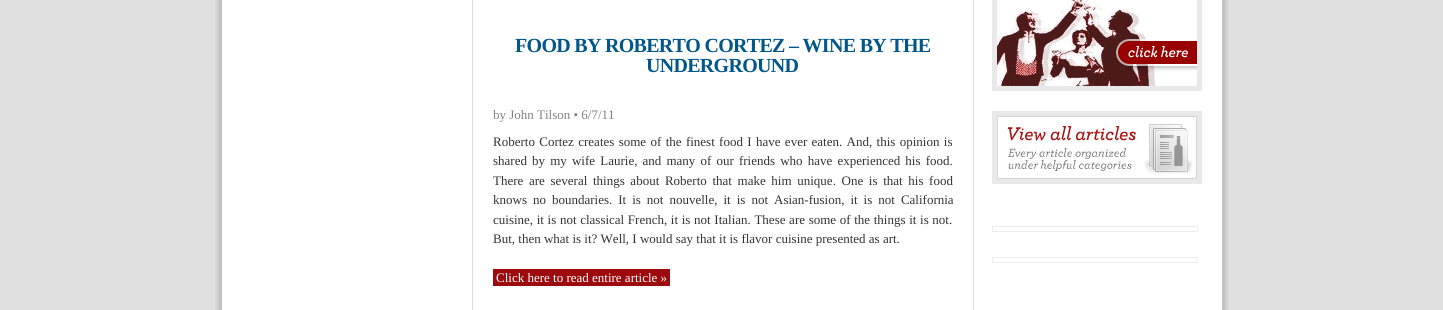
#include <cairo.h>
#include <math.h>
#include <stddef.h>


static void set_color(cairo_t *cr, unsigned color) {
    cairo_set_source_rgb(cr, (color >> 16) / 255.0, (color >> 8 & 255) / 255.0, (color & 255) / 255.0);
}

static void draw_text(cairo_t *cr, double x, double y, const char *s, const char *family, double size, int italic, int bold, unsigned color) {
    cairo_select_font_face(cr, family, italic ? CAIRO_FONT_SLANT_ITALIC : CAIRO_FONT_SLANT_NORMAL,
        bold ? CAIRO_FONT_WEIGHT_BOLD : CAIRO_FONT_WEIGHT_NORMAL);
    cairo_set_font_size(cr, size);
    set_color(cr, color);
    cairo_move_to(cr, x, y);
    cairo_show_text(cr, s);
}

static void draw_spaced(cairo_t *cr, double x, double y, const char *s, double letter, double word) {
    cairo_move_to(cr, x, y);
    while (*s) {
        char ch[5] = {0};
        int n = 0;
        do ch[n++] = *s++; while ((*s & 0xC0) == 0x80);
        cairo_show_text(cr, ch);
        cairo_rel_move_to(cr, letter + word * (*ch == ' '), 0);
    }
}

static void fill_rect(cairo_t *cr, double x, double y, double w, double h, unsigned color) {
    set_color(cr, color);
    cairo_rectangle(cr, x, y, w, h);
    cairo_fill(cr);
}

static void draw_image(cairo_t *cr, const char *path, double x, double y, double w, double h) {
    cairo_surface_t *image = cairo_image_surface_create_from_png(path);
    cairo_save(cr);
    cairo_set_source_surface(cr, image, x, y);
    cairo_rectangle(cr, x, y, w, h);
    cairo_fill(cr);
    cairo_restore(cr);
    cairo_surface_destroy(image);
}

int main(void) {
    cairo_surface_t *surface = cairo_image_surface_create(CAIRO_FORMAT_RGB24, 1443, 310);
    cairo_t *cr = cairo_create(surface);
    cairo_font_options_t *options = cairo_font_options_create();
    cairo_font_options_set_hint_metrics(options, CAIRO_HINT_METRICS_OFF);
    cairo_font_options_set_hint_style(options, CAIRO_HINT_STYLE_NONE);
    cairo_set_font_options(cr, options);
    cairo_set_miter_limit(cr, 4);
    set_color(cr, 0xE0E0E0);
    cairo_paint(cr);
    draw_image(cr, "assets/img1.png", 215, 0, 1014, 310);
    fill_rect(cr, 973, 0, 1, 310, 0xDDDDDD);
    fill_rect(cr, 472, 0, 1, 310, 0xDDDDDD);
    cairo_select_font_face(cr, "Liberation Serif", CAIRO_FONT_SLANT_NORMAL, CAIRO_FONT_WEIGHT_BOLD);
    cairo_set_font_size(cr, 20);
    set_color(cr, 0x01568A);
    draw_spaced(cr, 515, 52, "FOOD BY ROBERTO CORTEZ – WINE BY THE", -0.7, 0);
    draw_spaced(cr, 646, 72, "UNDERGROUND", -0.7, 0);
    draw_text(cr, 493, 119, "by John Tilson • 6/7/11", "Liberation Serif", 13, 0, 0, 0x818181);
    set_color(cr, 0x333333);
    draw_spaced(cr, 493, 146, "Roberto Cortez creates some of the finest food I have ever eaten. And, this opinion is", 0, 1.1);
    draw_spaced(cr, 493, 165, "shared by my wife Laurie, and many of our friends who have experienced his food.", 0, 1.9);
    draw_spaced(cr, 493, 185, "There are several things about Roberto that make him unique. One is that his food", 0, 2.4);
    draw_spaced(cr, 493, 204, "knows no boundaries. It is not nouvelle, it is not Asian-fusion, it is not California", 0, 2.75);
    draw_spaced(cr, 493, 224, "cuisine, it is not classical French, it is not Italian. These are some of the things it is not.", 0, 0.4);
    draw_text(cr, 493, 243, "But, then what is it? Well, I would say that it is flavor cuisine presented as art.", "Liberation Serif", 13, 0, 0, 0x333333);
    fill_rect(cr, 493, 269, 177, 17, 0x9C0A0E);
    draw_text(cr, 496, 282, "Click here to read entire article »", "Liberation Serif", 13, 0, 0, 0xFFFFFF);
    cairo_rectangle(cr, 994.5, -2.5, 205, 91);
    set_color(cr, 0xE9E9E9);
    cairo_set_line_width(cr, 5);
    cairo_stroke(cr);
    draw_image(cr, "assets/img2.png", 997, 0, 200, 86);
    draw_image(cr, "assets/img3.png", 992, 111, 210, 73);
    cairo_rectangle(cr, 992.5, 226.5, 205, 5);
    set_color(cr, 0xEDEDED);
    cairo_set_line_width(cr, 1);
    cairo_stroke(cr);
    cairo_rectangle(cr, 992.5, 257.5, 205, 5);
    cairo_stroke(cr);
    cairo_surface_write_to_png(surface, "output.png");
    cairo_font_options_destroy(options);
    cairo_destroy(cr);
    cairo_surface_destroy(surface);
    return 0;
}
